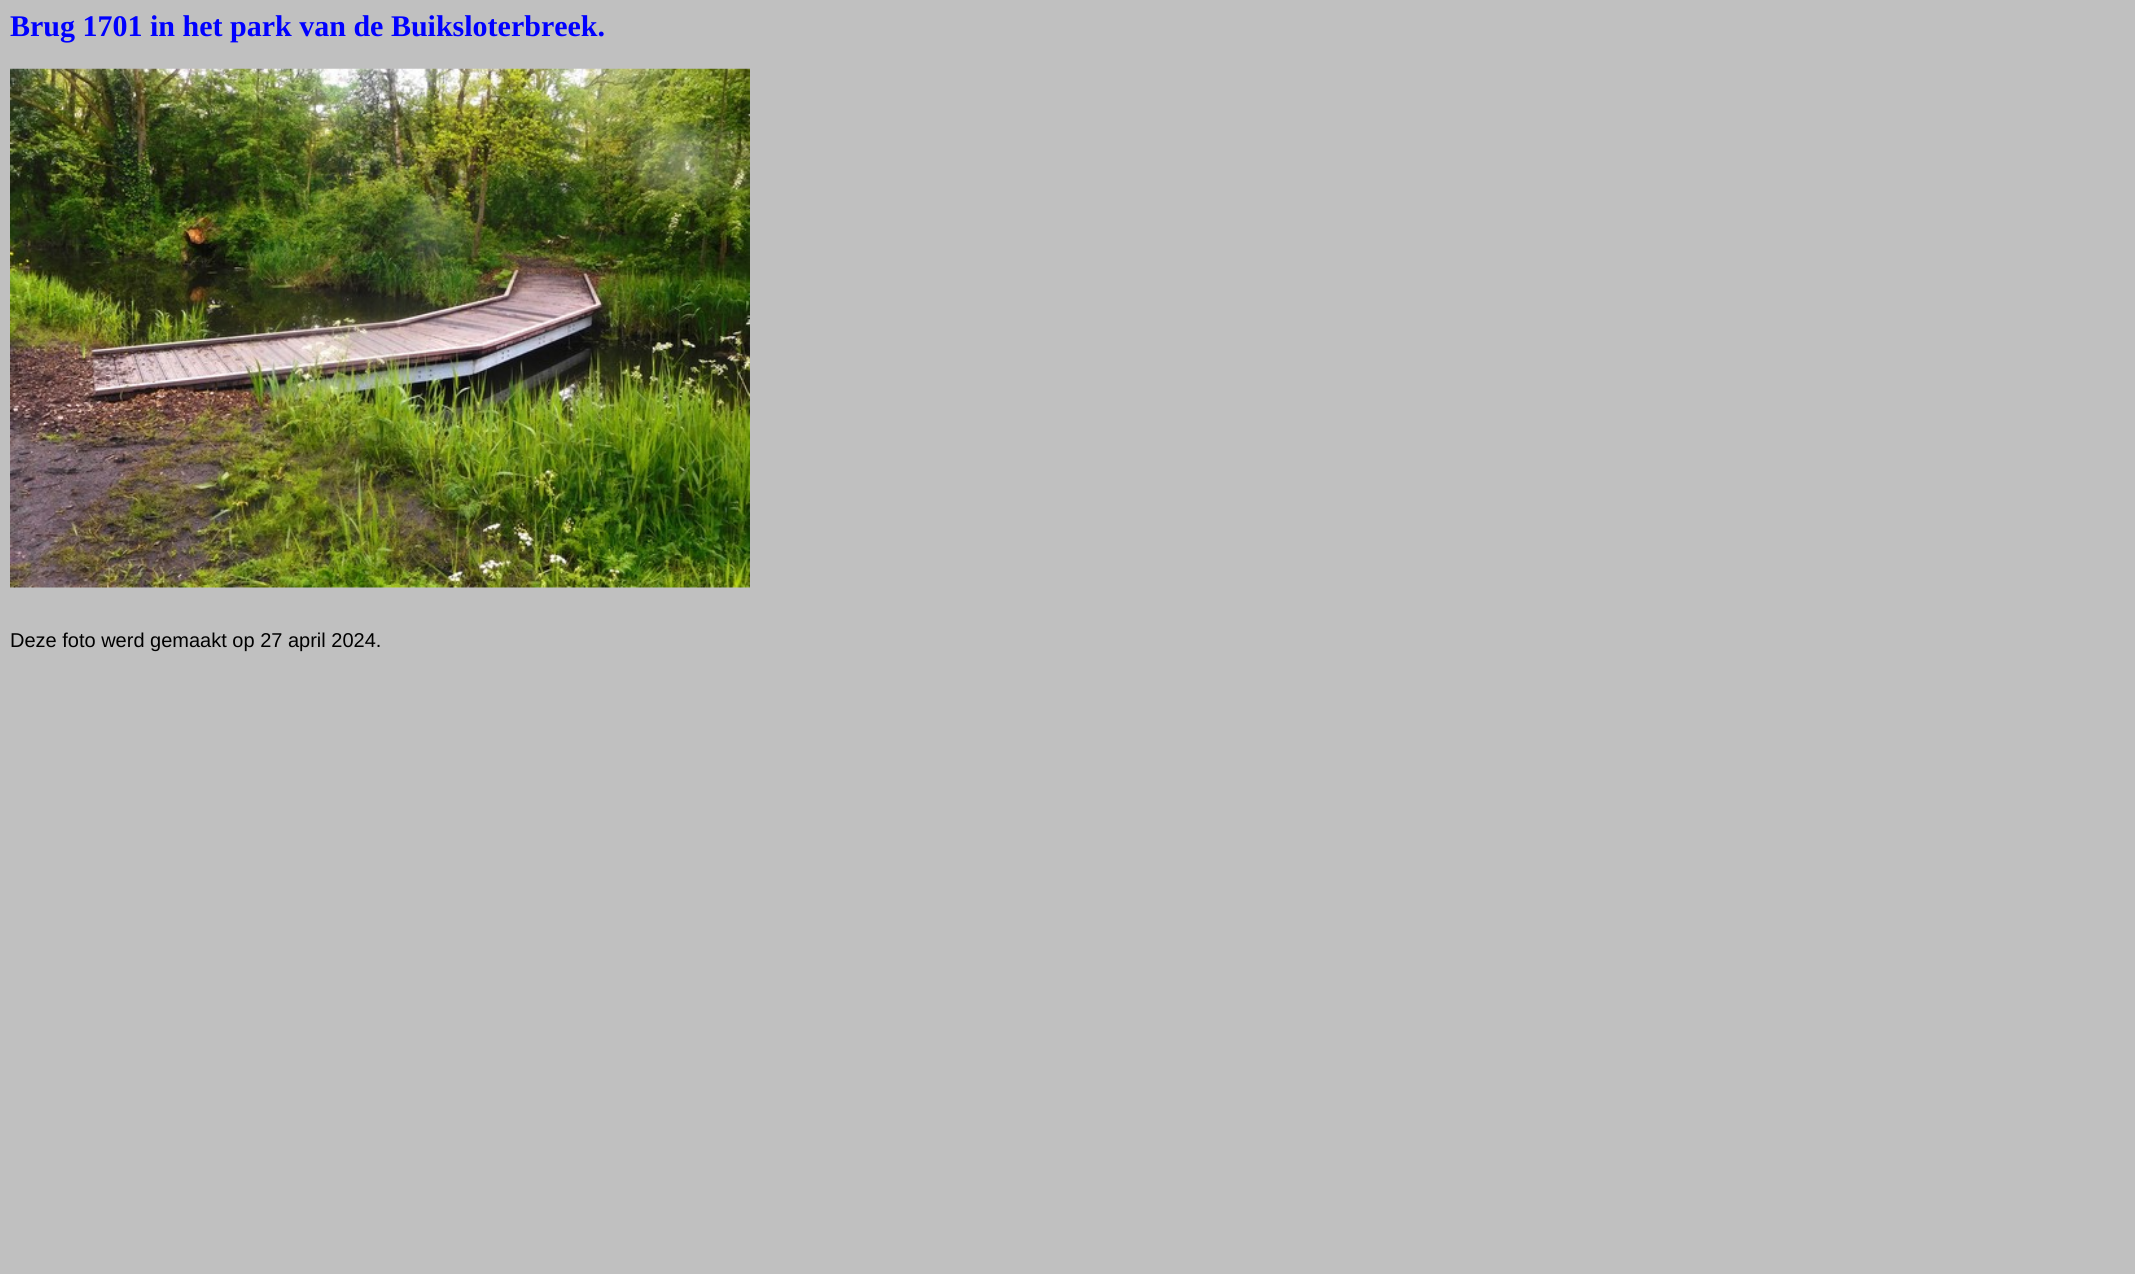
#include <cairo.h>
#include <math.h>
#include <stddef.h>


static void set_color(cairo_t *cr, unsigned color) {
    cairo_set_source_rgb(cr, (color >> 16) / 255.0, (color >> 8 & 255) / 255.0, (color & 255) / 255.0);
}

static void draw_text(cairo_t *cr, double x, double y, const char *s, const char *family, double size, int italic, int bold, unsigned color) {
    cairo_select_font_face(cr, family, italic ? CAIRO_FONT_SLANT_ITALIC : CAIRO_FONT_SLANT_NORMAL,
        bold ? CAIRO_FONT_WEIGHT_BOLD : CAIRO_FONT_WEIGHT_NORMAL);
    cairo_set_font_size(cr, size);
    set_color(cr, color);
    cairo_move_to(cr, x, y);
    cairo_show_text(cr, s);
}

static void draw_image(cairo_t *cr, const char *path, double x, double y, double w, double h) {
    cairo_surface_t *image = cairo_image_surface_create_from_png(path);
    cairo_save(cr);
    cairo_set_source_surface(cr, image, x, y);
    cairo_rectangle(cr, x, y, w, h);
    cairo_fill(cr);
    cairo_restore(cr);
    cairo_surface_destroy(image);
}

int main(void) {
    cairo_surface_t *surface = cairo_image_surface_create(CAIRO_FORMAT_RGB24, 2135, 1274);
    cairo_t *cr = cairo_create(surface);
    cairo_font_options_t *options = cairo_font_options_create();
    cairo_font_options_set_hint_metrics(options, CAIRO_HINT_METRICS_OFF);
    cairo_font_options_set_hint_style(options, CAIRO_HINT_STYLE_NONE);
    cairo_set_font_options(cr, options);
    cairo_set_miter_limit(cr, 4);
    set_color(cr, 0xC0C0C0);
    cairo_paint(cr);
    draw_text(cr, 10, 36, "Brug 1701 in het park van de Buiksloterbreek.", "Liberation Serif", 30, 0, 1, 0x0000FF);
    draw_image(cr, "assets/img1.png", 10, 68, 740, 520);
    draw_text(cr, 10, 647, "Deze foto werd gemaakt op 27 april 2024.", "Liberation Sans", 20, 0, 0, 0x000000);
    cairo_surface_write_to_png(surface, "output.png");
    cairo_font_options_destroy(options);
    cairo_destroy(cr);
    cairo_surface_destroy(surface);
    return 0;
}
